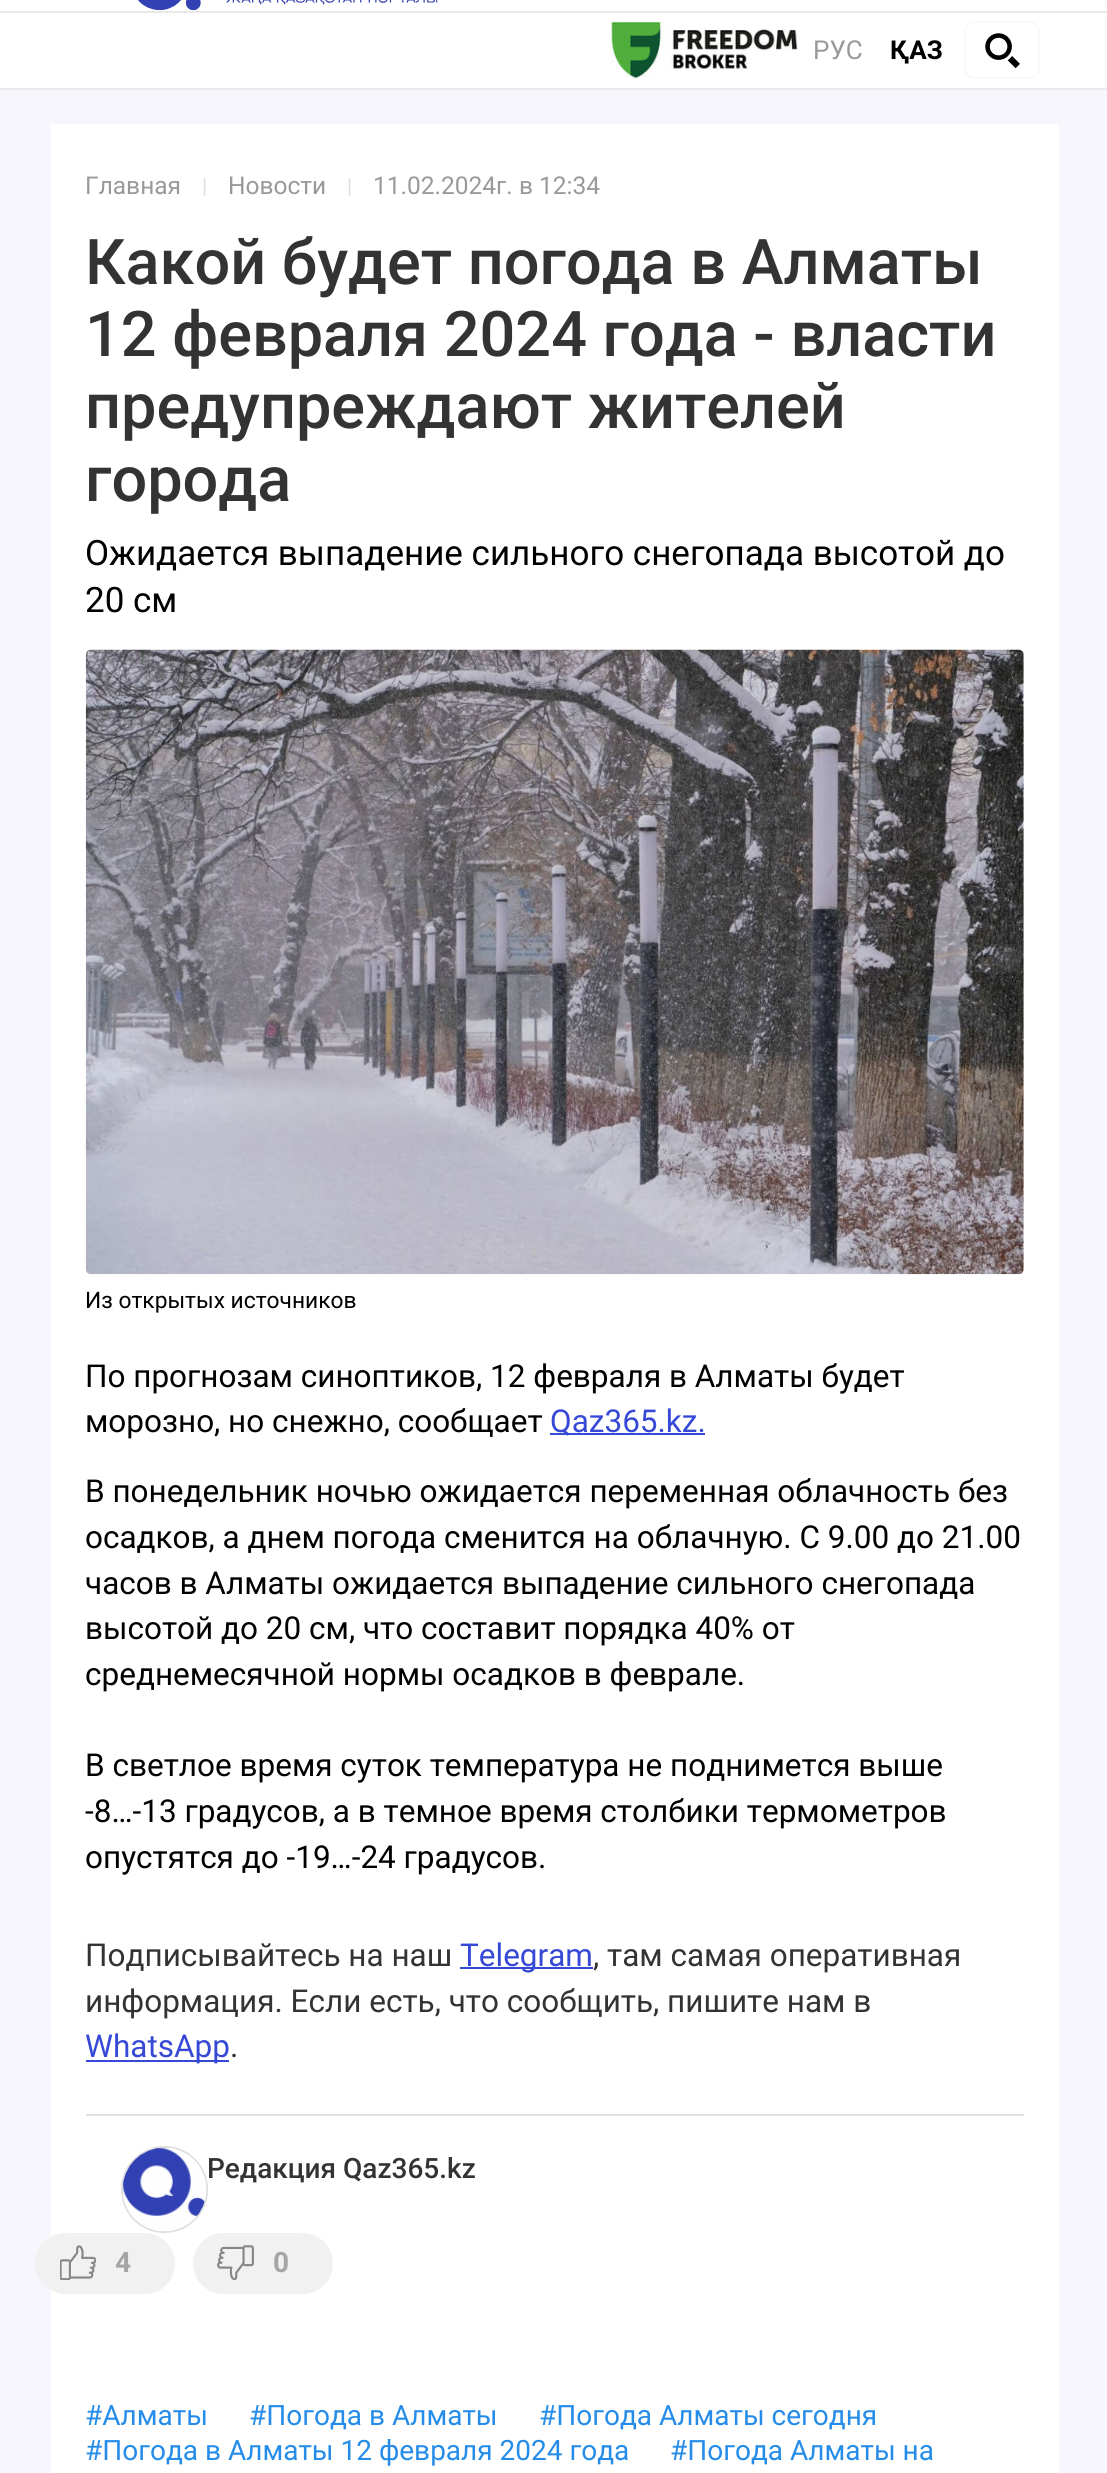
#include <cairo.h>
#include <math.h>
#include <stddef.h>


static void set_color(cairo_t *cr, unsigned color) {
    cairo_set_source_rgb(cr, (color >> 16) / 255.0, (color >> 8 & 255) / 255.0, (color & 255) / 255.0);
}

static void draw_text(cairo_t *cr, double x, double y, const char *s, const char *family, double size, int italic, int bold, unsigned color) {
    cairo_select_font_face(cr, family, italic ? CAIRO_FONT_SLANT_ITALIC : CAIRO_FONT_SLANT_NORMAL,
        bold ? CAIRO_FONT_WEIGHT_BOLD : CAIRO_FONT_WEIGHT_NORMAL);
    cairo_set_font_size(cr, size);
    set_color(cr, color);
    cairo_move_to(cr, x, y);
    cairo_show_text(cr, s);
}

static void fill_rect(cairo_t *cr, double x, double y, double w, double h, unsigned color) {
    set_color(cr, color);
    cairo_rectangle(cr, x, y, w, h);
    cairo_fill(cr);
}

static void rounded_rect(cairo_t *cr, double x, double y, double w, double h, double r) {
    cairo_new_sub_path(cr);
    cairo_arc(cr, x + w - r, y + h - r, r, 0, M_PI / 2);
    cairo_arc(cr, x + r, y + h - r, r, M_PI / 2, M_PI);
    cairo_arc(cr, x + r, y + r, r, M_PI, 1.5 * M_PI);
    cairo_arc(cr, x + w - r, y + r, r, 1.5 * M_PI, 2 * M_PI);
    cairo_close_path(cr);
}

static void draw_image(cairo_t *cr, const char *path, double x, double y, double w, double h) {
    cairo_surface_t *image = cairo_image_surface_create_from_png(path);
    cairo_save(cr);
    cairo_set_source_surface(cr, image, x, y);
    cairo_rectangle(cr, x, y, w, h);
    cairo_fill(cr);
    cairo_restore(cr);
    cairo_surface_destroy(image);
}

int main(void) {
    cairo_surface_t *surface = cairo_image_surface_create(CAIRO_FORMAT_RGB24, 1107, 2473);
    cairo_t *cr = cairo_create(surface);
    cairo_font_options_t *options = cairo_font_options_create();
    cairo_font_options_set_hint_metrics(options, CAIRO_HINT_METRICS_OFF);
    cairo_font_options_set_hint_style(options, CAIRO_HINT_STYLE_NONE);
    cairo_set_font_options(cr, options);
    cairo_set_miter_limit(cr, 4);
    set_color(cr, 0xF6F6FC);
    cairo_paint(cr);
    fill_rect(cr, 0, 0, 1107, 88, 0xFFFFFF);
    fill_rect(cr, 0, 11, 1107, 2, 0xE9E9E9);
    draw_image(cr, "assets/img1.png", 138, 0, 300, 11);
    fill_rect(cr, 0, 88, 1107, 2, 0xE9E9E9);
    draw_image(cr, "assets/img2.png", 611, 21, 187, 58);
    draw_text(cr, 813, 59, "РУС", "Roboto", 26, 0, 0, 0x999999);
    draw_text(cr, 890, 59, "ҚАЗ", "Roboto", 26, 0, 1, 0x000000);
    rounded_rect(cr, 965, 22, 74, 56, 10);
    set_color(cr, 0xF8F9FA);
    cairo_stroke(cr);
    draw_image(cr, "assets/img3.png", 985, 33, 35, 35);
    fill_rect(cr, 51, 124, 1008, 2349, 0xFFFFFF);
    draw_text(cr, 85, 194, "Главная", "Roboto", 24.5, 0, 0, 0x999999);
    draw_text(cr, 202, 193, "|", "Roboto", 21, 0, 0, 0xDDDDDD);
    draw_text(cr, 228, 194, "Новости", "Roboto", 24.5, 0, 0, 0x999999);
    draw_text(cr, 347, 193, "|", "Roboto", 21, 0, 0, 0xDDDDDD);
    draw_text(cr, 373, 194, "11.02.2024г. в 12:34", "Roboto", 24.5, 0, 0, 0x999999);
    draw_text(cr, 85, 284, "Какой будет погода в Алматы", "Roboto Medium", 63, 0, 0, 0x333333);
    draw_text(cr, 85, 356, "12 февраля 2024 года - власти", "Roboto Medium", 63, 0, 0, 0x333333);
    draw_text(cr, 85, 428, "предупреждают жителей", "Roboto Medium", 63, 0, 0, 0x333333);
    draw_text(cr, 85, 501, "города", "Roboto Medium", 63, 0, 0, 0x333333);
    draw_text(cr, 85, 565, "Ожидается выпадение сильного снегопада высотой до", "Roboto", 35, 0, 0, 0x000000);
    draw_text(cr, 85, 612, "20 см", "Roboto", 35, 0, 0, 0x000000);
    draw_image(cr, "assets/img4.png", 85, 649, 939, 626);
    draw_text(cr, 85, 1308, "Из открытых источников", "Roboto", 22.75, 0, 0, 0x000000);
    draw_text(cr, 85, 1387, "По прогнозам синоптиков, 12 февраля в Алматы будет", "Roboto", 31.5, 0, 0, 0x000000);
    draw_text(cr, 85, 1432, "морозно, но снежно, сообщает", "Roboto", 31.5, 0, 0, 0x000000);
    fill_rect(cr, 550, 1433, 155, 2, 0x3649D6);
    draw_text(cr, 550, 1432, "Qaz365.kz.", "Roboto", 31.5, 0, 0, 0x3649D6);
    draw_text(cr, 85, 1502, "В понедельник ночью ожидается переменная облачность без", "Roboto", 31.5, 0, 0, 0x000000);
    draw_text(cr, 85, 1548, "осадков, а днем погода сменится на облачную. С 9.00 до 21.00", "Roboto", 31.5, 0, 0, 0x000000);
    draw_text(cr, 85, 1594, "часов в Алматы ожидается выпадение сильного снегопада", "Roboto", 31.5, 0, 0, 0x000000);
    draw_text(cr, 85, 1639, "высотой до 20 см, что составит порядка 40% от", "Roboto", 31.5, 0, 0, 0x000000);
    draw_text(cr, 85, 1685, "среднемесячной нормы осадков в феврале.", "Roboto", 31.5, 0, 0, 0x000000);
    draw_text(cr, 85, 1776, "В светлое время суток температура не поднимется выше", "Roboto", 31.5, 0, 0, 0x000000);
    draw_text(cr, 85, 1822, "-8…-13 градусов, а в темное время столбики термометров", "Roboto", 31.5, 0, 0, 0x000000);
    draw_text(cr, 85, 1868, "опустятся до -19…-24 градусов.", "Roboto", 31.5, 0, 0, 0x000000);
    draw_text(cr, 85, 1966, "Подписывайтесь на наш", "Roboto", 31.5, 0, 0, 0x333333);
    fill_rect(cr, 460, 1967, 133, 2, 0x3649D6);
    draw_text(cr, 460, 1966, "Telegram", "Roboto", 31.5, 0, 0, 0x3649D6);
    draw_text(cr, 593, 1966, ", там самая оперативная", "Roboto", 31.5, 0, 0, 0x333333);
    draw_text(cr, 85, 2012, "информация. Если есть, что сообщить, пишите нам в", "Roboto", 31.5, 0, 0, 0x333333);
    fill_rect(cr, 86, 2060, 143, 2, 0x3649D6);
    draw_text(cr, 85, 2057, "WhatsApp", "Roboto", 31.5, 0, 0, 0x3649D6);
    draw_text(cr, 230, 2057, ".", "Roboto", 31.5, 0, 0, 0x333333);
    fill_rect(cr, 86, 2114, 938, 2, 0xE0E0E0);
    cairo_new_path(cr);
    cairo_arc(cr, 164.5, 2189.5, 42.5, 0, 2 * M_PI);
    set_color(cr, 0xDDDDDD);
    cairo_stroke(cr);
    draw_image(cr, "assets/img5.png", 122, 2147, 85, 85);
    draw_text(cr, 207, 2178, "Редакция Qaz365.kz", "Roboto Medium", 28, 0, 0, 0x333333);
    set_color(cr, 0xF1F1F1);
    rounded_rect(cr, 35, 2233, 140, 61, 30.5);
    cairo_fill(cr);
    draw_image(cr, "assets/img6.png", 60, 2245, 36, 35);
    draw_text(cr, 115, 2272, "4", "Roboto", 28, 0, 1, 0xA5A5A5);
    set_color(cr, 0xF1F1F1);
    rounded_rect(cr, 193, 2233, 140, 61, 30.5);
    cairo_fill(cr);
    draw_image(cr, "assets/img7.png", 217, 2245, 37, 35);
    draw_text(cr, 273, 2272, "0", "Roboto", 28, 0, 1, 0xA5A5A5);
    draw_text(cr, 85, 2425, "#Алматы", "Roboto", 28, 0, 0, 0x258DE9);
    draw_text(cr, 249, 2425, "#Погода в Алматы", "Roboto", 28, 0, 0, 0x258DE9);
    draw_text(cr, 539, 2425, "#Погода Алматы сегодня", "Roboto", 28, 0, 0, 0x258DE9);
    draw_text(cr, 85, 2460, "#Погода в Алматы 12 февраля 2024 года", "Roboto", 28, 0, 0, 0x258DE9);
    draw_text(cr, 670, 2460, "#Погода Алматы на", "Roboto", 28, 0, 0, 0x258DE9);
    cairo_surface_write_to_png(surface, "output.png");
    cairo_font_options_destroy(options);
    cairo_destroy(cr);
    cairo_surface_destroy(surface);
    return 0;
}
